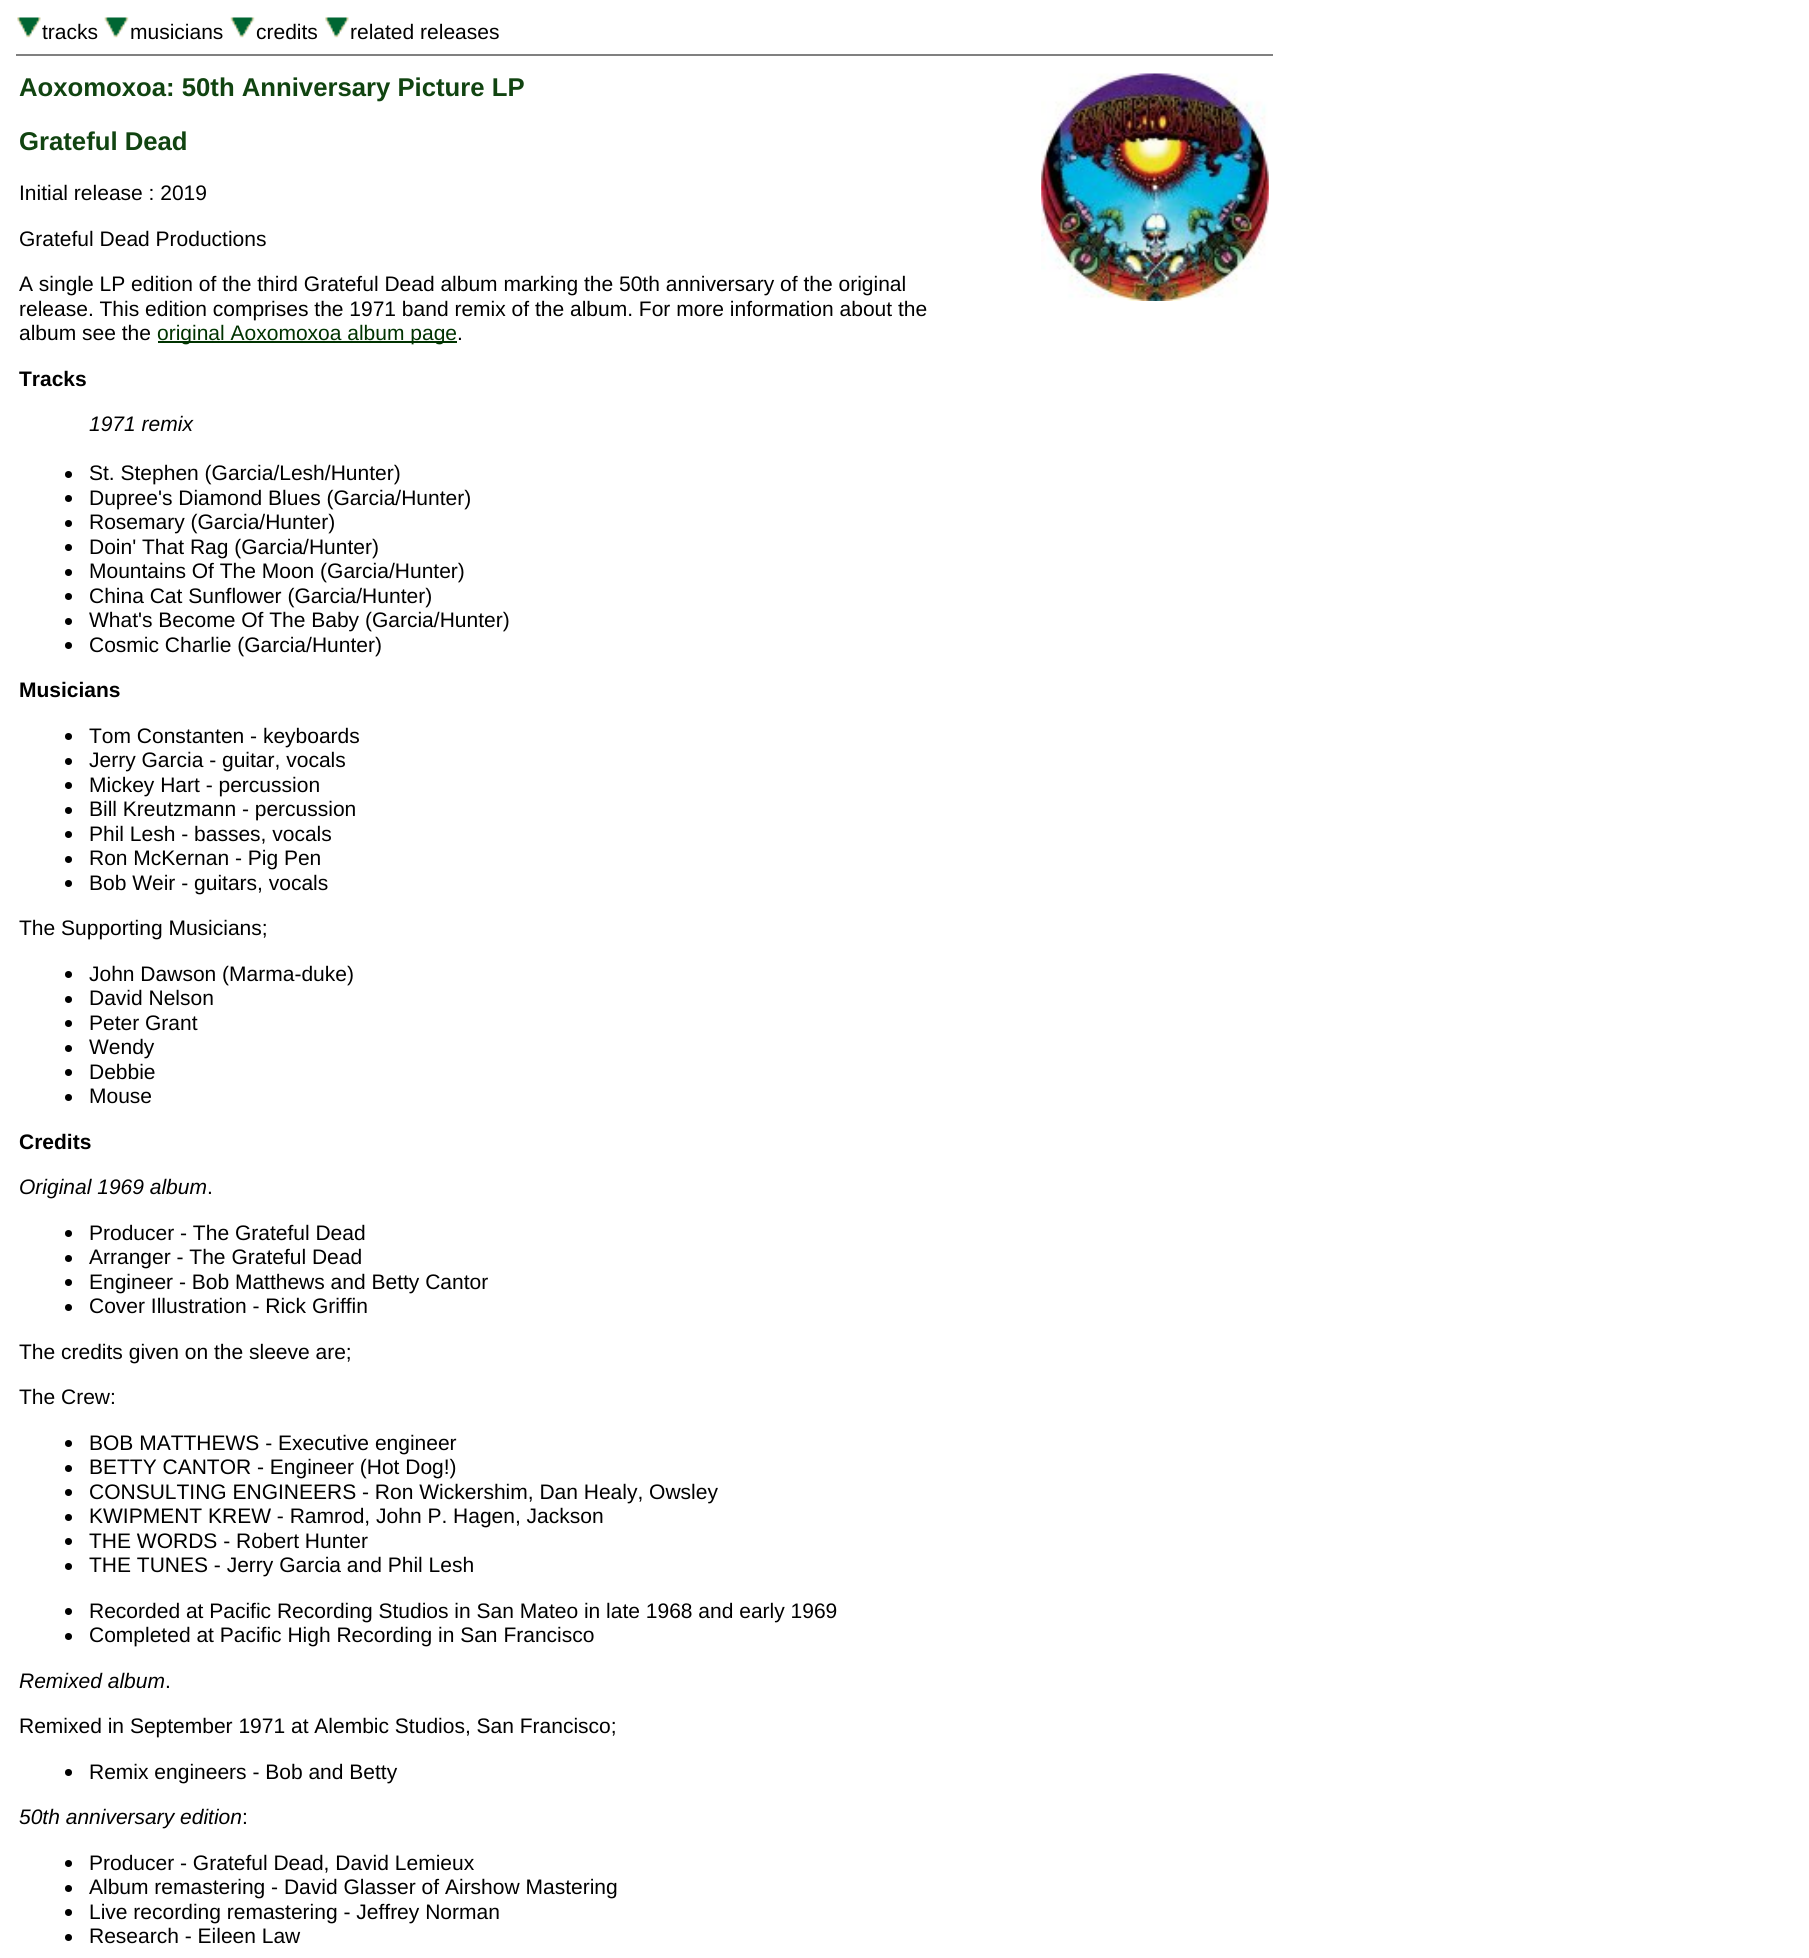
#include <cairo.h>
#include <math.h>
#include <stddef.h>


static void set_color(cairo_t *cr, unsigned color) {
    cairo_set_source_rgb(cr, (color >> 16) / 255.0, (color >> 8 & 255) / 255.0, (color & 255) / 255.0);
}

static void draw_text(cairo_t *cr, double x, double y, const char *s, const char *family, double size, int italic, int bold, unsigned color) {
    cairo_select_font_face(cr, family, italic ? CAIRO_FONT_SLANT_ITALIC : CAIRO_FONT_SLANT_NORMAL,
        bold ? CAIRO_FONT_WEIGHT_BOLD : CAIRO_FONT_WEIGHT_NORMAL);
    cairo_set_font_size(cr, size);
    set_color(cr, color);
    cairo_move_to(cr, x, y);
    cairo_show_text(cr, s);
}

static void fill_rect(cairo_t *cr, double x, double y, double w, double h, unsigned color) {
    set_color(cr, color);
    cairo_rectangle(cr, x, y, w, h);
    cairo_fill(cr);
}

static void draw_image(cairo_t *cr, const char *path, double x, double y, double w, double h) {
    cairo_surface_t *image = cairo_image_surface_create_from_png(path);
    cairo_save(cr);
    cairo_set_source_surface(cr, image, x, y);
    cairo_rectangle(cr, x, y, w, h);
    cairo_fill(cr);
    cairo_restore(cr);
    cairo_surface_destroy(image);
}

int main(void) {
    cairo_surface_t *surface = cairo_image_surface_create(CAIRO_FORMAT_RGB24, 1809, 1958);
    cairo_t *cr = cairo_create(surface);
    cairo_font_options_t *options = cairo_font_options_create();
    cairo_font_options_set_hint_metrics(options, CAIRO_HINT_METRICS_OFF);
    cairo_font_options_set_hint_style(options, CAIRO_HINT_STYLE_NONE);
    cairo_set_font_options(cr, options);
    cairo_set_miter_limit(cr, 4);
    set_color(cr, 0xFFFFFF);
    cairo_paint(cr);
    draw_image(cr, "assets/img1.png", 17, 17, 24, 21);
    draw_text(cr, 42, 39, "tracks", "Liberation Sans", 21, 0, 0, 0x000000);
    draw_image(cr, "assets/img2.png", 104, 17, 25, 21);
    draw_text(cr, 130, 39, "musicians", "Liberation Sans", 21, 0, 0, 0x000000);
    draw_image(cr, "assets/img3.png", 230, 17, 25, 21);
    draw_text(cr, 256, 39, "credits", "Liberation Sans", 21, 0, 0, 0x000000);
    draw_image(cr, "assets/img1.png", 325, 17, 24, 21);
    draw_text(cr, 350, 39, "related releases", "Liberation Sans", 21, 0, 0, 0x000000);
    fill_rect(cr, 16, 54, 1257, 2, 0x808080);
    draw_text(cr, 19, 96, "Aoxomoxoa: 50th Anniversary Picture LP", "Liberation Sans", 25.7, 0, 1, 0x114411);
    draw_text(cr, 19, 150, "Grateful Dead", "Liberation Sans", 25.7, 0, 1, 0x114411);
    draw_text(cr, 19, 200, "Initial release : 2019", "Liberation Sans", 21, 0, 0, 0x000000);
    draw_text(cr, 19, 246, "Grateful Dead Productions", "Liberation Sans", 21, 0, 0, 0x000000);
    draw_text(cr, 19, 291, "A single LP edition of the third Grateful Dead album marking the 50th anniversary of the original", "Liberation Sans", 21, 0, 0, 0x000000);
    draw_text(cr, 19, 316, "release. This edition comprises the 1971 band remix of the album. For more information about the", "Liberation Sans", 21, 0, 0, 0x000000);
    draw_text(cr, 19, 340, "album see the", "Liberation Sans", 21, 0, 0, 0x000000);
    fill_rect(cr, 158, 341, 299, 2, 0x003300);
    draw_text(cr, 157, 340, "original Aoxomoxoa album page", "Liberation Sans", 21, 0, 0, 0x003300);
    draw_text(cr, 457, 340, ".", "Liberation Sans", 21, 0, 0, 0x000000);
    draw_text(cr, 19, 386, "Tracks", "Liberation Sans", 21, 0, 1, 0x000000);
    draw_text(cr, 89, 431, "1971 remix", "Liberation Sans", 21, 1, 0, 0x000000);
    cairo_new_path(cr);
    cairo_arc(cr, 68.5, 474.5, 3.5, 0, 2 * M_PI);
    cairo_fill(cr);
    draw_text(cr, 89, 480, "St. Stephen (Garcia/Lesh/Hunter)", "Liberation Sans", 21, 0, 0, 0x000000);
    cairo_new_path(cr);
    cairo_arc(cr, 68.5, 498.5, 3.5, 0, 2 * M_PI);
    cairo_fill(cr);
    draw_text(cr, 89, 505, "Dupree's Diamond Blues (Garcia/Hunter)", "Liberation Sans", 21, 0, 0, 0x000000);
    cairo_new_path(cr);
    cairo_arc(cr, 68.5, 523.5, 3.5, 0, 2 * M_PI);
    cairo_fill(cr);
    draw_text(cr, 89, 529, "Rosemary (Garcia/Hunter)", "Liberation Sans", 21, 0, 0, 0x000000);
    cairo_new_path(cr);
    cairo_arc(cr, 68.5, 547.5, 3.5, 0, 2 * M_PI);
    cairo_fill(cr);
    draw_text(cr, 89, 554, "Doin' That Rag (Garcia/Hunter)", "Liberation Sans", 21, 0, 0, 0x000000);
    cairo_new_path(cr);
    cairo_arc(cr, 68.5, 572.5, 3.5, 0, 2 * M_PI);
    cairo_fill(cr);
    draw_text(cr, 89, 578, "Mountains Of The Moon (Garcia/Hunter)", "Liberation Sans", 21, 0, 0, 0x000000);
    cairo_new_path(cr);
    cairo_arc(cr, 68.5, 596.5, 3.5, 0, 2 * M_PI);
    cairo_fill(cr);
    draw_text(cr, 89, 603, "China Cat Sunflower (Garcia/Hunter)", "Liberation Sans", 21, 0, 0, 0x000000);
    cairo_new_path(cr);
    cairo_arc(cr, 68.5, 621.5, 3.5, 0, 2 * M_PI);
    cairo_fill(cr);
    draw_text(cr, 89, 627, "What's Become Of The Baby (Garcia/Hunter)", "Liberation Sans", 21, 0, 0, 0x000000);
    cairo_new_path(cr);
    cairo_arc(cr, 68.5, 645.5, 3.5, 0, 2 * M_PI);
    cairo_fill(cr);
    draw_text(cr, 89, 652, "Cosmic Charlie (Garcia/Hunter)", "Liberation Sans", 21, 0, 0, 0x000000);
    draw_text(cr, 19, 697, "Musicians", "Liberation Sans", 21, 0, 1, 0x000000);
    cairo_new_path(cr);
    cairo_arc(cr, 68.5, 736.5, 3.5, 0, 2 * M_PI);
    cairo_fill(cr);
    draw_text(cr, 89, 743, "Tom Constanten - keyboards", "Liberation Sans", 21, 0, 0, 0x000000);
    cairo_new_path(cr);
    cairo_arc(cr, 68.5, 761.5, 3.5, 0, 2 * M_PI);
    cairo_fill(cr);
    draw_text(cr, 89, 767, "Jerry Garcia - guitar, vocals", "Liberation Sans", 21, 0, 0, 0x000000);
    cairo_new_path(cr);
    cairo_arc(cr, 68.5, 785.5, 3.5, 0, 2 * M_PI);
    cairo_fill(cr);
    draw_text(cr, 89, 792, "Mickey Hart - percussion", "Liberation Sans", 21, 0, 0, 0x000000);
    cairo_new_path(cr);
    cairo_arc(cr, 68.5, 810.5, 3.5, 0, 2 * M_PI);
    cairo_fill(cr);
    draw_text(cr, 89, 816, "Bill Kreutzmann - percussion", "Liberation Sans", 21, 0, 0, 0x000000);
    cairo_new_path(cr);
    cairo_arc(cr, 68.5, 834.5, 3.5, 0, 2 * M_PI);
    cairo_fill(cr);
    draw_text(cr, 89, 841, "Phil Lesh - basses, vocals", "Liberation Sans", 21, 0, 0, 0x000000);
    cairo_new_path(cr);
    cairo_arc(cr, 68.5, 859.5, 3.5, 0, 2 * M_PI);
    cairo_fill(cr);
    draw_text(cr, 89, 865, "Ron McKernan - Pig Pen", "Liberation Sans", 21, 0, 0, 0x000000);
    cairo_new_path(cr);
    cairo_arc(cr, 68.5, 883.5, 3.5, 0, 2 * M_PI);
    cairo_fill(cr);
    draw_text(cr, 89, 890, "Bob Weir - guitars, vocals", "Liberation Sans", 21, 0, 0, 0x000000);
    draw_text(cr, 19, 935, "The Supporting Musicians;", "Liberation Sans", 21, 0, 0, 0x000000);
    cairo_new_path(cr);
    cairo_arc(cr, 68.5, 974.5, 3.5, 0, 2 * M_PI);
    cairo_fill(cr);
    draw_text(cr, 89, 981, "John Dawson (Marma-duke)", "Liberation Sans", 21, 0, 0, 0x000000);
    cairo_new_path(cr);
    cairo_arc(cr, 68.5, 999.5, 3.5, 0, 2 * M_PI);
    cairo_fill(cr);
    draw_text(cr, 89, 1005, "David Nelson", "Liberation Sans", 21, 0, 0, 0x000000);
    cairo_new_path(cr);
    cairo_arc(cr, 68.5, 1023.5, 3.5, 0, 2 * M_PI);
    cairo_fill(cr);
    draw_text(cr, 89, 1030, "Peter Grant", "Liberation Sans", 21, 0, 0, 0x000000);
    cairo_new_path(cr);
    cairo_arc(cr, 68.5, 1048.5, 3.5, 0, 2 * M_PI);
    cairo_fill(cr);
    draw_text(cr, 89, 1054, "Wendy", "Liberation Sans", 21, 0, 0, 0x000000);
    cairo_new_path(cr);
    cairo_arc(cr, 68.5, 1072.5, 3.5, 0, 2 * M_PI);
    cairo_fill(cr);
    draw_text(cr, 89, 1079, "Debbie", "Liberation Sans", 21, 0, 0, 0x000000);
    cairo_new_path(cr);
    cairo_arc(cr, 68.5, 1097.5, 3.5, 0, 2 * M_PI);
    cairo_fill(cr);
    draw_text(cr, 89, 1103, "Mouse", "Liberation Sans", 21, 0, 0, 0x000000);
    draw_text(cr, 19, 1149, "Credits", "Liberation Sans", 21, 0, 1, 0x000000);
    draw_text(cr, 19, 1194, "Original 1969 album", "Liberation Sans", 21, 1, 0, 0x000000);
    draw_text(cr, 207, 1194, ".", "Liberation Sans", 21, 0, 0, 0x000000);
    cairo_new_path(cr);
    cairo_arc(cr, 68.5, 1233.5, 3.5, 0, 2 * M_PI);
    cairo_fill(cr);
    draw_text(cr, 89, 1240, "Producer - The Grateful Dead", "Liberation Sans", 21, 0, 0, 0x000000);
    cairo_new_path(cr);
    cairo_arc(cr, 68.5, 1258.5, 3.5, 0, 2 * M_PI);
    cairo_fill(cr);
    draw_text(cr, 89, 1264, "Arranger - The Grateful Dead", "Liberation Sans", 21, 0, 0, 0x000000);
    cairo_new_path(cr);
    cairo_arc(cr, 68.5, 1282.5, 3.5, 0, 2 * M_PI);
    cairo_fill(cr);
    draw_text(cr, 89, 1289, "Engineer - Bob Matthews and Betty Cantor", "Liberation Sans", 21, 0, 0, 0x000000);
    cairo_new_path(cr);
    cairo_arc(cr, 68.5, 1307.5, 3.5, 0, 2 * M_PI);
    cairo_fill(cr);
    draw_text(cr, 89, 1313, "Cover Illustration - Rick Griffin", "Liberation Sans", 21, 0, 0, 0x000000);
    draw_text(cr, 19, 1359, "The credits given on the sleeve are;", "Liberation Sans", 21, 0, 0, 0x000000);
    draw_text(cr, 19, 1404, "The Crew:", "Liberation Sans", 21, 0, 0, 0x000000);
    cairo_new_path(cr);
    cairo_arc(cr, 68.5, 1443.5, 3.5, 0, 2 * M_PI);
    cairo_fill(cr);
    draw_text(cr, 89, 1450, "BOB MATTHEWS - Executive engineer", "Liberation Sans", 21, 0, 0, 0x000000);
    cairo_new_path(cr);
    cairo_arc(cr, 68.5, 1468.5, 3.5, 0, 2 * M_PI);
    cairo_fill(cr);
    draw_text(cr, 89, 1474, "BETTY CANTOR - Engineer (Hot Dog!)", "Liberation Sans", 21, 0, 0, 0x000000);
    cairo_new_path(cr);
    cairo_arc(cr, 68.5, 1492.5, 3.5, 0, 2 * M_PI);
    cairo_fill(cr);
    draw_text(cr, 89, 1499, "CONSULTING ENGINEERS - Ron Wickershim, Dan Healy, Owsley", "Liberation Sans", 21, 0, 0, 0x000000);
    cairo_new_path(cr);
    cairo_arc(cr, 68.5, 1517.5, 3.5, 0, 2 * M_PI);
    cairo_fill(cr);
    draw_text(cr, 89, 1523, "KWIPMENT KREW - Ramrod, John P. Hagen, Jackson", "Liberation Sans", 21, 0, 0, 0x000000);
    cairo_new_path(cr);
    cairo_arc(cr, 68.5, 1541.5, 3.5, 0, 2 * M_PI);
    cairo_fill(cr);
    draw_text(cr, 89, 1548, "THE WORDS - Robert Hunter", "Liberation Sans", 21, 0, 0, 0x000000);
    cairo_new_path(cr);
    cairo_arc(cr, 68.5, 1566.5, 3.5, 0, 2 * M_PI);
    cairo_fill(cr);
    draw_text(cr, 89, 1572, "THE TUNES - Jerry Garcia and Phil Lesh", "Liberation Sans", 21, 0, 0, 0x000000);
    cairo_new_path(cr);
    cairo_arc(cr, 68.5, 1611.5, 3.5, 0, 2 * M_PI);
    cairo_fill(cr);
    draw_text(cr, 89, 1618, "Recorded at Pacific Recording Studios in San Mateo in late 1968 and early 1969", "Liberation Sans", 21, 0, 0, 0x000000);
    cairo_new_path(cr);
    cairo_arc(cr, 68.5, 1636.5, 3.5, 0, 2 * M_PI);
    cairo_fill(cr);
    draw_text(cr, 89, 1642, "Completed at Pacific High Recording in San Francisco", "Liberation Sans", 21, 0, 0, 0x000000);
    draw_text(cr, 19, 1688, "Remixed album", "Liberation Sans", 21, 1, 0, 0x000000);
    draw_text(cr, 165, 1688, ".", "Liberation Sans", 21, 0, 0, 0x000000);
    draw_text(cr, 19, 1733, "Remixed in September 1971 at Alembic Studios, San Francisco;", "Liberation Sans", 21, 0, 0, 0x000000);
    cairo_new_path(cr);
    cairo_arc(cr, 68.5, 1772.5, 3.5, 0, 2 * M_PI);
    cairo_fill(cr);
    draw_text(cr, 89, 1779, "Remix engineers - Bob and Betty", "Liberation Sans", 21, 0, 0, 0x000000);
    draw_text(cr, 19, 1824, "50th anniversary edition", "Liberation Sans", 21, 1, 0, 0x000000);
    draw_text(cr, 242, 1824, ":", "Liberation Sans", 21, 0, 0, 0x000000);
    cairo_new_path(cr);
    cairo_arc(cr, 68.5, 1863.5, 3.5, 0, 2 * M_PI);
    cairo_fill(cr);
    draw_text(cr, 89, 1870, "Producer - Grateful Dead, David Lemieux", "Liberation Sans", 21, 0, 0, 0x000000);
    cairo_new_path(cr);
    cairo_arc(cr, 68.5, 1888.5, 3.5, 0, 2 * M_PI);
    cairo_fill(cr);
    draw_text(cr, 89, 1894, "Album remastering - David Glasser of Airshow Mastering", "Liberation Sans", 21, 0, 0, 0x000000);
    cairo_new_path(cr);
    cairo_arc(cr, 68.5, 1912.5, 3.5, 0, 2 * M_PI);
    cairo_fill(cr);
    draw_text(cr, 89, 1919, "Live recording remastering - Jeffrey Norman", "Liberation Sans", 21, 0, 0, 0x000000);
    cairo_new_path(cr);
    cairo_arc(cr, 68.5, 1937.5, 3.5, 0, 2 * M_PI);
    cairo_fill(cr);
    draw_text(cr, 89, 1943, "Research - Eileen Law", "Liberation Sans", 21, 0, 0, 0x000000);
    draw_image(cr, "assets/img4.png", 1041, 73, 228, 228);
    cairo_surface_write_to_png(surface, "output.png");
    cairo_font_options_destroy(options);
    cairo_destroy(cr);
    cairo_surface_destroy(surface);
    return 0;
}
